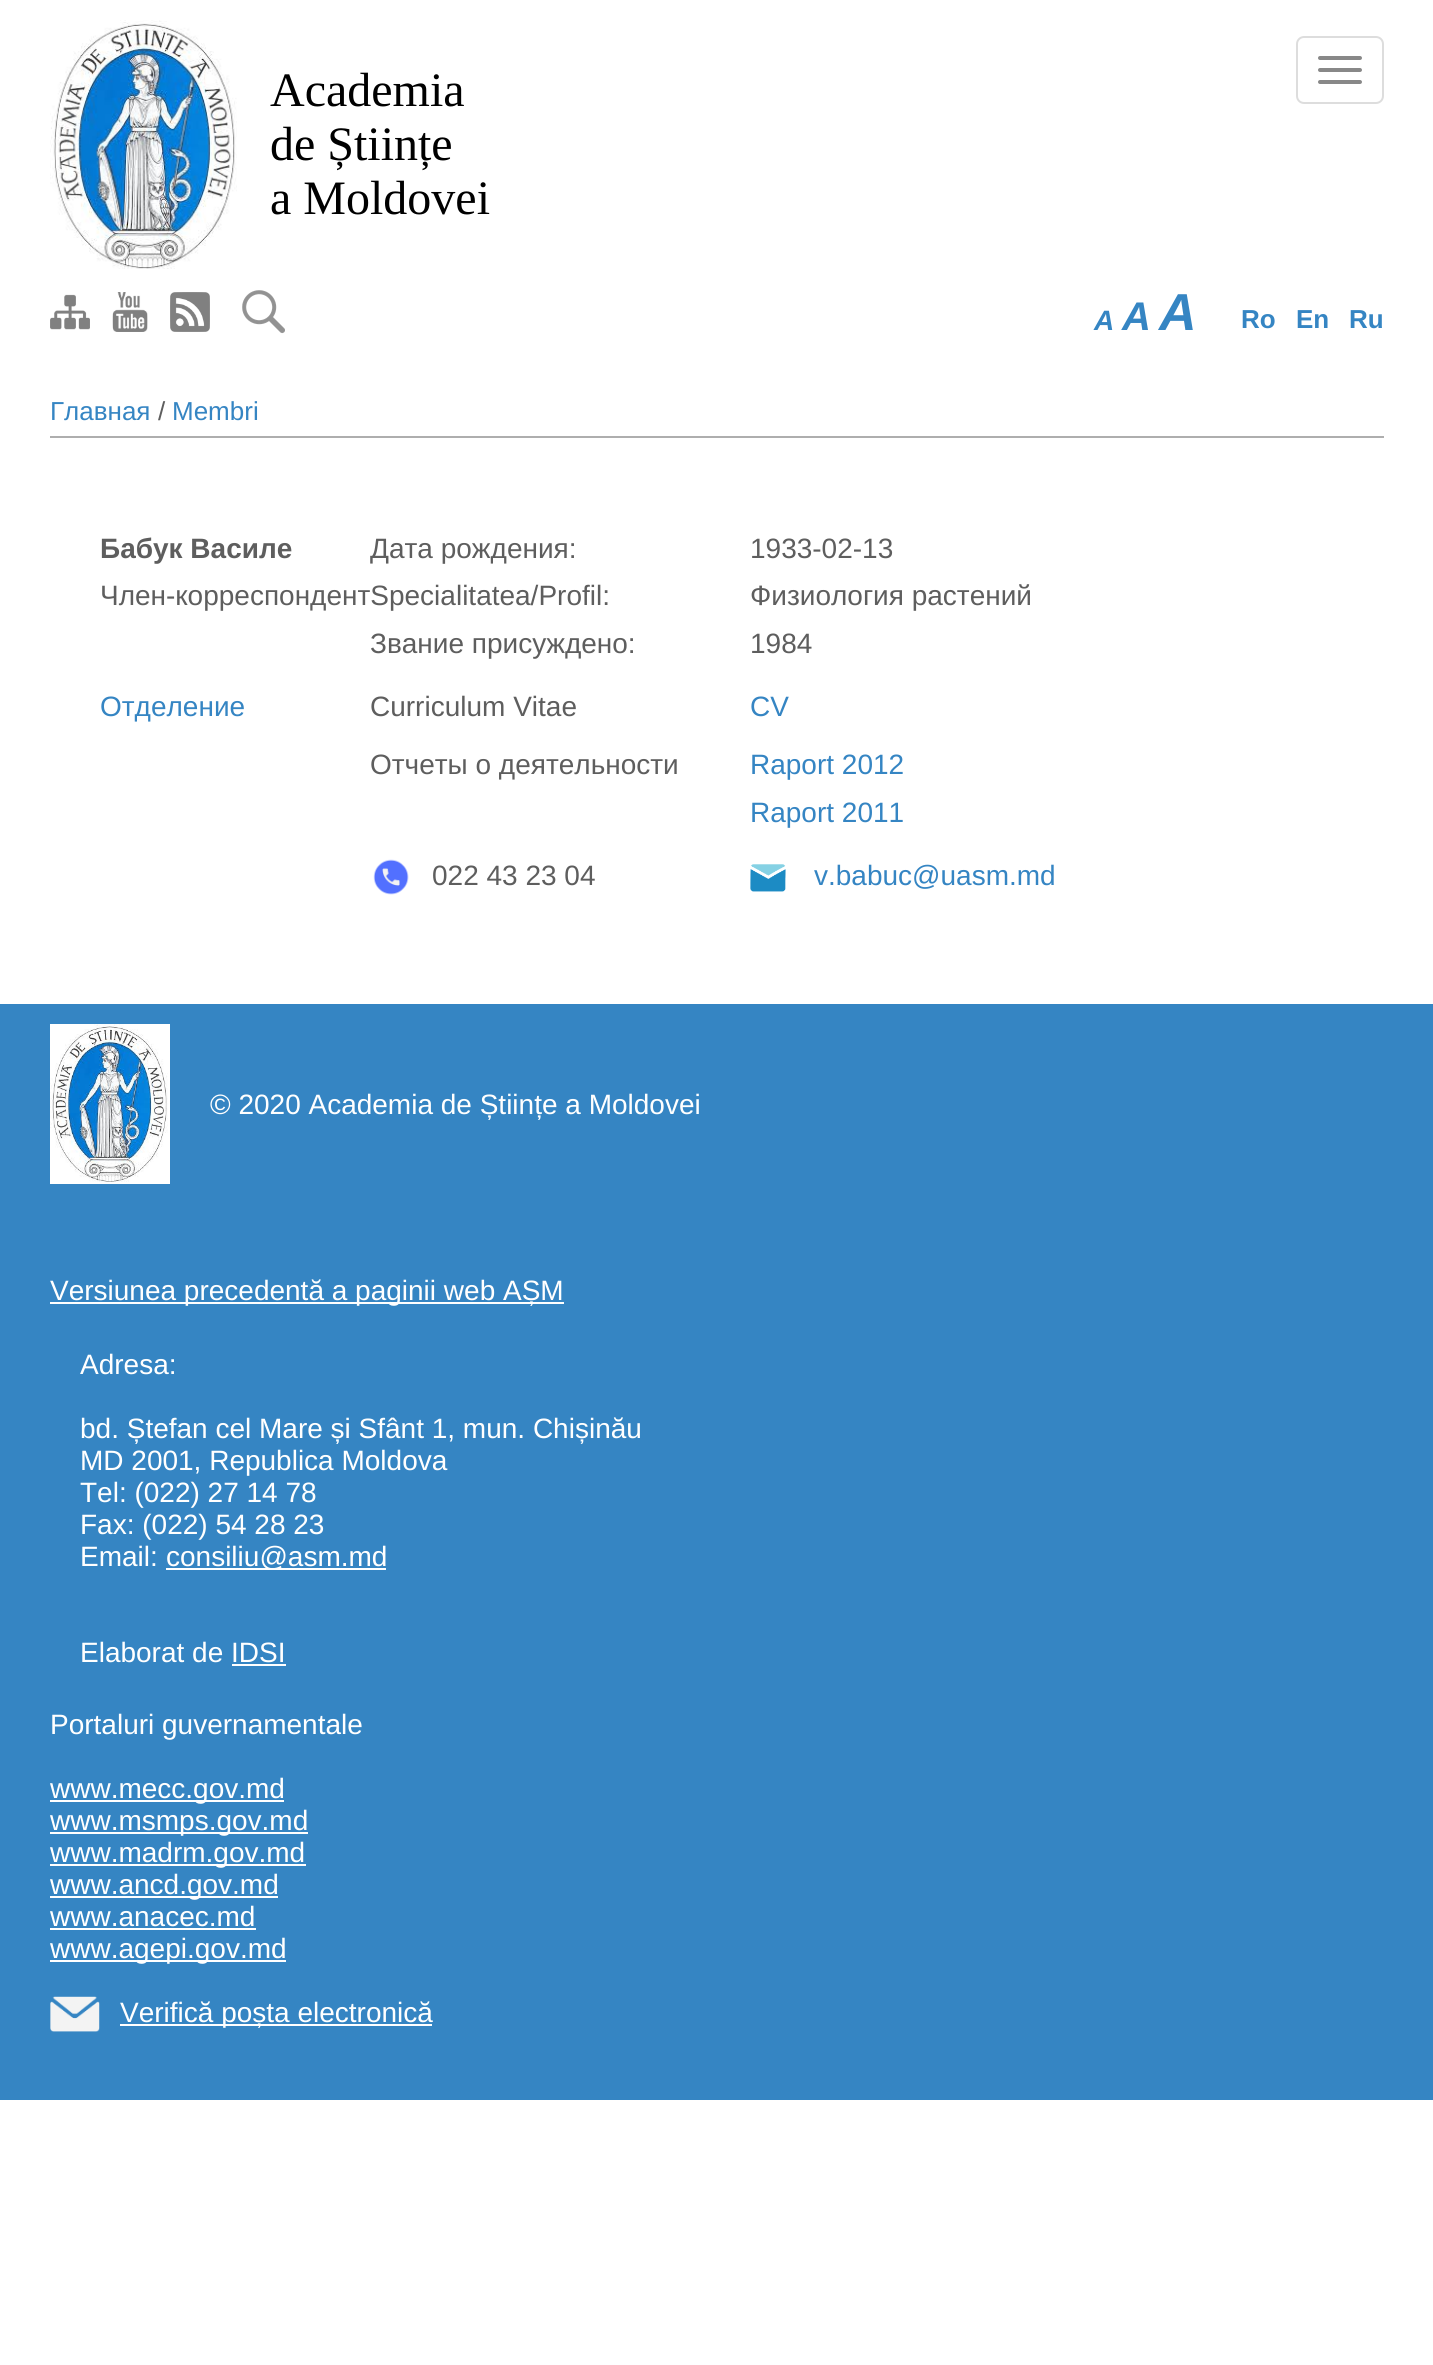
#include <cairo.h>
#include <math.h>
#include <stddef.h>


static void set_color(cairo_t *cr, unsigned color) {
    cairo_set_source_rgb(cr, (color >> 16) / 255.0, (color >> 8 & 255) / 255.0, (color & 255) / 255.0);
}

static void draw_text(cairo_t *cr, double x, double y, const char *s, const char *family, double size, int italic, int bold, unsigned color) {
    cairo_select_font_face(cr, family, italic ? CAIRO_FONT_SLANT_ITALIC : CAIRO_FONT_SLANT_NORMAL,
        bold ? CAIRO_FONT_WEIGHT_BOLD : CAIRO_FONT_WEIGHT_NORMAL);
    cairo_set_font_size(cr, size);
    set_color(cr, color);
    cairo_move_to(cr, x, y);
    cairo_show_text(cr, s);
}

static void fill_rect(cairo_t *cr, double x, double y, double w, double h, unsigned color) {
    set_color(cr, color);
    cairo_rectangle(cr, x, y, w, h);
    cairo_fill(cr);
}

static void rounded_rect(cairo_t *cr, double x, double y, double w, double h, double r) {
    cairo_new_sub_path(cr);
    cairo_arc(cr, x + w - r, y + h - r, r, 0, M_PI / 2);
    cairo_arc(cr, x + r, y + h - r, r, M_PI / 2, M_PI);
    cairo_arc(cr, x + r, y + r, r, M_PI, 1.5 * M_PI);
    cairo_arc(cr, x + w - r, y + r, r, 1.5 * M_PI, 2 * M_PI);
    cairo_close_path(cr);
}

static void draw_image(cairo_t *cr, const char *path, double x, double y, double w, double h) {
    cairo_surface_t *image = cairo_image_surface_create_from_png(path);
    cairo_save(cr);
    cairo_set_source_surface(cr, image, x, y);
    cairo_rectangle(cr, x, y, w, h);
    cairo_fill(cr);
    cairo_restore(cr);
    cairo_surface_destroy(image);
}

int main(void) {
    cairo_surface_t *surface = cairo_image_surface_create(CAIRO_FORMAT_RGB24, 1433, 2365);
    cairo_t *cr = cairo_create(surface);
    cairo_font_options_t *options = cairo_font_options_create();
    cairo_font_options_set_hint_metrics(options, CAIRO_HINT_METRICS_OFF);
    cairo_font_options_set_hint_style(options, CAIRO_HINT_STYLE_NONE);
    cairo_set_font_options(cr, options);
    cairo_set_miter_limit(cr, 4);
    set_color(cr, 0xFFFFFF);
    cairo_paint(cr);
    draw_image(cr, "assets/img1.png", 50, 20, 187, 249);
    draw_text(cr, 270, 106, "Academia", "Liberation Serif", 48, 0, 0, 0x000000);
    draw_text(cr, 270, 160, "de Științe", "Liberation Serif", 48, 0, 0, 0x000000);
    draw_text(cr, 270, 214, "a Moldovei", "Liberation Serif", 48, 0, 0, 0x000000);
    rounded_rect(cr, 1297, 37, 86, 66, 7);
    set_color(cr, 0xDDDDDD);
    cairo_stroke(cr);
    set_color(cr, 0x888888);
    rounded_rect(cr, 1318, 56, 44, 4, 2);
    cairo_fill(cr);
    rounded_rect(cr, 1318, 68, 44, 4, 2);
    cairo_fill(cr);
    rounded_rect(cr, 1318, 80, 44, 4, 2);
    cairo_fill(cr);
    draw_image(cr, "assets/img2.png", 242, 290, 43, 44);
    draw_image(cr, "assets/img3.png", 50, 294, 40, 36);
    draw_image(cr, "assets/img4.png", 112, 292, 36, 40);
    draw_image(cr, "assets/img5.png", 170, 292, 40, 40);
    draw_text(cr, 1094, 330, "A", "Liberation Sans", 28, 1, 1, 0x3585C3);
    draw_text(cr, 1122, 330, "A", "Liberation Sans", 40, 1, 1, 0x3585C3);
    draw_text(cr, 1159, 330, "A", "Liberation Sans", 52, 1, 1, 0x3585C3);
    draw_text(cr, 1241, 328, "Ro", "Liberation Sans", 26, 0, 1, 0x3585C3);
    draw_text(cr, 1296, 328, "En", "Liberation Sans", 26, 0, 1, 0x3585C3);
    draw_text(cr, 1349, 328, "Ru", "Liberation Sans", 26, 0, 1, 0x3585C3);
    fill_rect(cr, 50, 436, 1334, 2, 0xAEAEAE);
    draw_text(cr, 50, 420, "Главная", "Liberation Sans", 26, 0, 0, 0x3585C3);
    draw_text(cr, 158, 420, "/", "Liberation Sans", 26, 0, 0, 0x5E5E5E);
    draw_text(cr, 172, 420, "Membri", "Liberation Sans", 26, 0, 0, 0x3585C3);
    draw_text(cr, 100, 558, "Бабук Василе", "Liberation Sans", 28, 0, 1, 0x5E5E5E);
    draw_text(cr, 100, 605, "Член-корреспондентSpecialitatea/Profil:", "Liberation Sans", 28, 0, 0, 0x5E5E5E);
    draw_text(cr, 370, 558, "Дата рождения:", "Liberation Sans", 28, 0, 0, 0x5E5E5E);
    draw_text(cr, 370, 653, "Звание присуждено:", "Liberation Sans", 28, 0, 0, 0x5E5E5E);
    draw_text(cr, 750, 558, "1933-02-13", "Liberation Sans", 28, 0, 0, 0x5E5E5E);
    draw_text(cr, 750, 605, "Физиология растений", "Liberation Sans", 28, 0, 0, 0x5E5E5E);
    draw_text(cr, 750, 653, "1984", "Liberation Sans", 28, 0, 0, 0x5E5E5E);
    draw_text(cr, 100, 716, "Отделение", "Liberation Sans", 28, 0, 0, 0x3585C3);
    draw_text(cr, 370, 716, "Curriculum Vitae", "Liberation Sans", 28, 0, 0, 0x5E5E5E);
    draw_text(cr, 370, 774, "Отчеты о деятельности", "Liberation Sans", 28, 0, 0, 0x5E5E5E);
    draw_text(cr, 750, 716, "CV", "Liberation Sans", 28, 0, 0, 0x3585C3);
    draw_text(cr, 750, 774, "Raport 2012", "Liberation Sans", 28, 0, 0, 0x3585C3);
    draw_text(cr, 750, 822, "Raport 2011", "Liberation Sans", 28, 0, 0, 0x3585C3);
    draw_image(cr, "assets/img6.png", 373, 859, 36, 36);
    draw_text(cr, 432, 885, "022 43 23 04", "Liberation Sans", 28, 0, 0, 0x5E5E5E);
    draw_image(cr, "assets/img7.png", 750, 864, 36, 28);
    draw_text(cr, 814, 885, "v.babuc@uasm.md", "Liberation Sans", 28, 0, 0, 0x3585C3);
    fill_rect(cr, 0, 1004, 1433, 1096, 0x3585C3);
    draw_image(cr, "assets/img8.png", 50, 1024, 120, 160);
    draw_text(cr, 210, 1114, "© 2020 Academia de Științe a Moldovei", "Liberation Sans", 28, 0, 0, 0xFFFFFF);
    fill_rect(cr, 50, 1302, 514, 2, 0xFFFFFF);
    draw_text(cr, 50, 1300, "Versiunea precedentă a paginii web AȘM", "Liberation Sans", 28, 0, 0, 0xFFFFFF);
    draw_text(cr, 80, 1374, "Adresa:", "Liberation Sans", 28, 0, 0, 0xFFFFFF);
    draw_text(cr, 80, 1438, "bd. Ștefan cel Mare și Sfânt 1, mun. Chișinău", "Liberation Sans", 28, 0, 0, 0xFFFFFF);
    draw_text(cr, 80, 1470, "MD 2001, Republica Moldova", "Liberation Sans", 28, 0, 0, 0xFFFFFF);
    draw_text(cr, 80, 1502, "Tel: (022) 27 14 78", "Liberation Sans", 28, 0, 0, 0xFFFFFF);
    draw_text(cr, 80, 1534, "Fax: (022) 54 28 23", "Liberation Sans", 28, 0, 0, 0xFFFFFF);
    draw_text(cr, 80, 1566, "Email:", "Liberation Sans", 28, 0, 0, 0xFFFFFF);
    fill_rect(cr, 166, 1568, 220, 2, 0xFFFFFF);
    draw_text(cr, 166, 1566, "consiliu@asm.md", "Liberation Sans", 28, 0, 0, 0xFFFFFF);
    draw_text(cr, 80, 1662, "Elaborat de IDSI", "Liberation Sans", 28, 0, 0, 0xFFFFFF);
    fill_rect(cr, 232, 1664, 54, 2, 0xFFFFFF);
    draw_text(cr, 50, 1734, "Portaluri guvernamentale", "Liberation Sans", 28, 0, 0, 0xFFFFFF);
    fill_rect(cr, 50, 1800, 234, 2, 0xFFFFFF);
    draw_text(cr, 50, 1798, "www.mecc.gov.md", "Liberation Sans", 28, 0, 0, 0xFFFFFF);
    fill_rect(cr, 50, 1832, 258, 2, 0xFFFFFF);
    draw_text(cr, 50, 1830, "www.msmps.gov.md", "Liberation Sans", 28, 0, 0, 0xFFFFFF);
    fill_rect(cr, 50, 1864, 256, 2, 0xFFFFFF);
    draw_text(cr, 50, 1862, "www.madrm.gov.md", "Liberation Sans", 28, 0, 0, 0xFFFFFF);
    fill_rect(cr, 50, 1896, 228, 2, 0xFFFFFF);
    draw_text(cr, 50, 1894, "www.ancd.gov.md", "Liberation Sans", 28, 0, 0, 0xFFFFFF);
    draw_text(cr, 50, 1926, "www.anacec.md", "Liberation Sans", 28, 0, 0, 0xFFFFFF);
    fill_rect(cr, 50, 1928, 206, 2, 0xFFFFFF);
    fill_rect(cr, 50, 1960, 236, 2, 0xFFFFFF);
    draw_text(cr, 50, 1958, "www.agepi.gov.md", "Liberation Sans", 28, 0, 0, 0xFFFFFF);
    draw_image(cr, "assets/img9.png", 50, 1996, 50, 36);
    fill_rect(cr, 120, 2024, 312, 2, 0xFFFFFF);
    draw_text(cr, 120, 2022, "Verifică poșta electronică", "Liberation Sans", 28, 0, 0, 0xFFFFFF);
    cairo_surface_write_to_png(surface, "output.png");
    cairo_font_options_destroy(options);
    cairo_destroy(cr);
    cairo_surface_destroy(surface);
    return 0;
}
